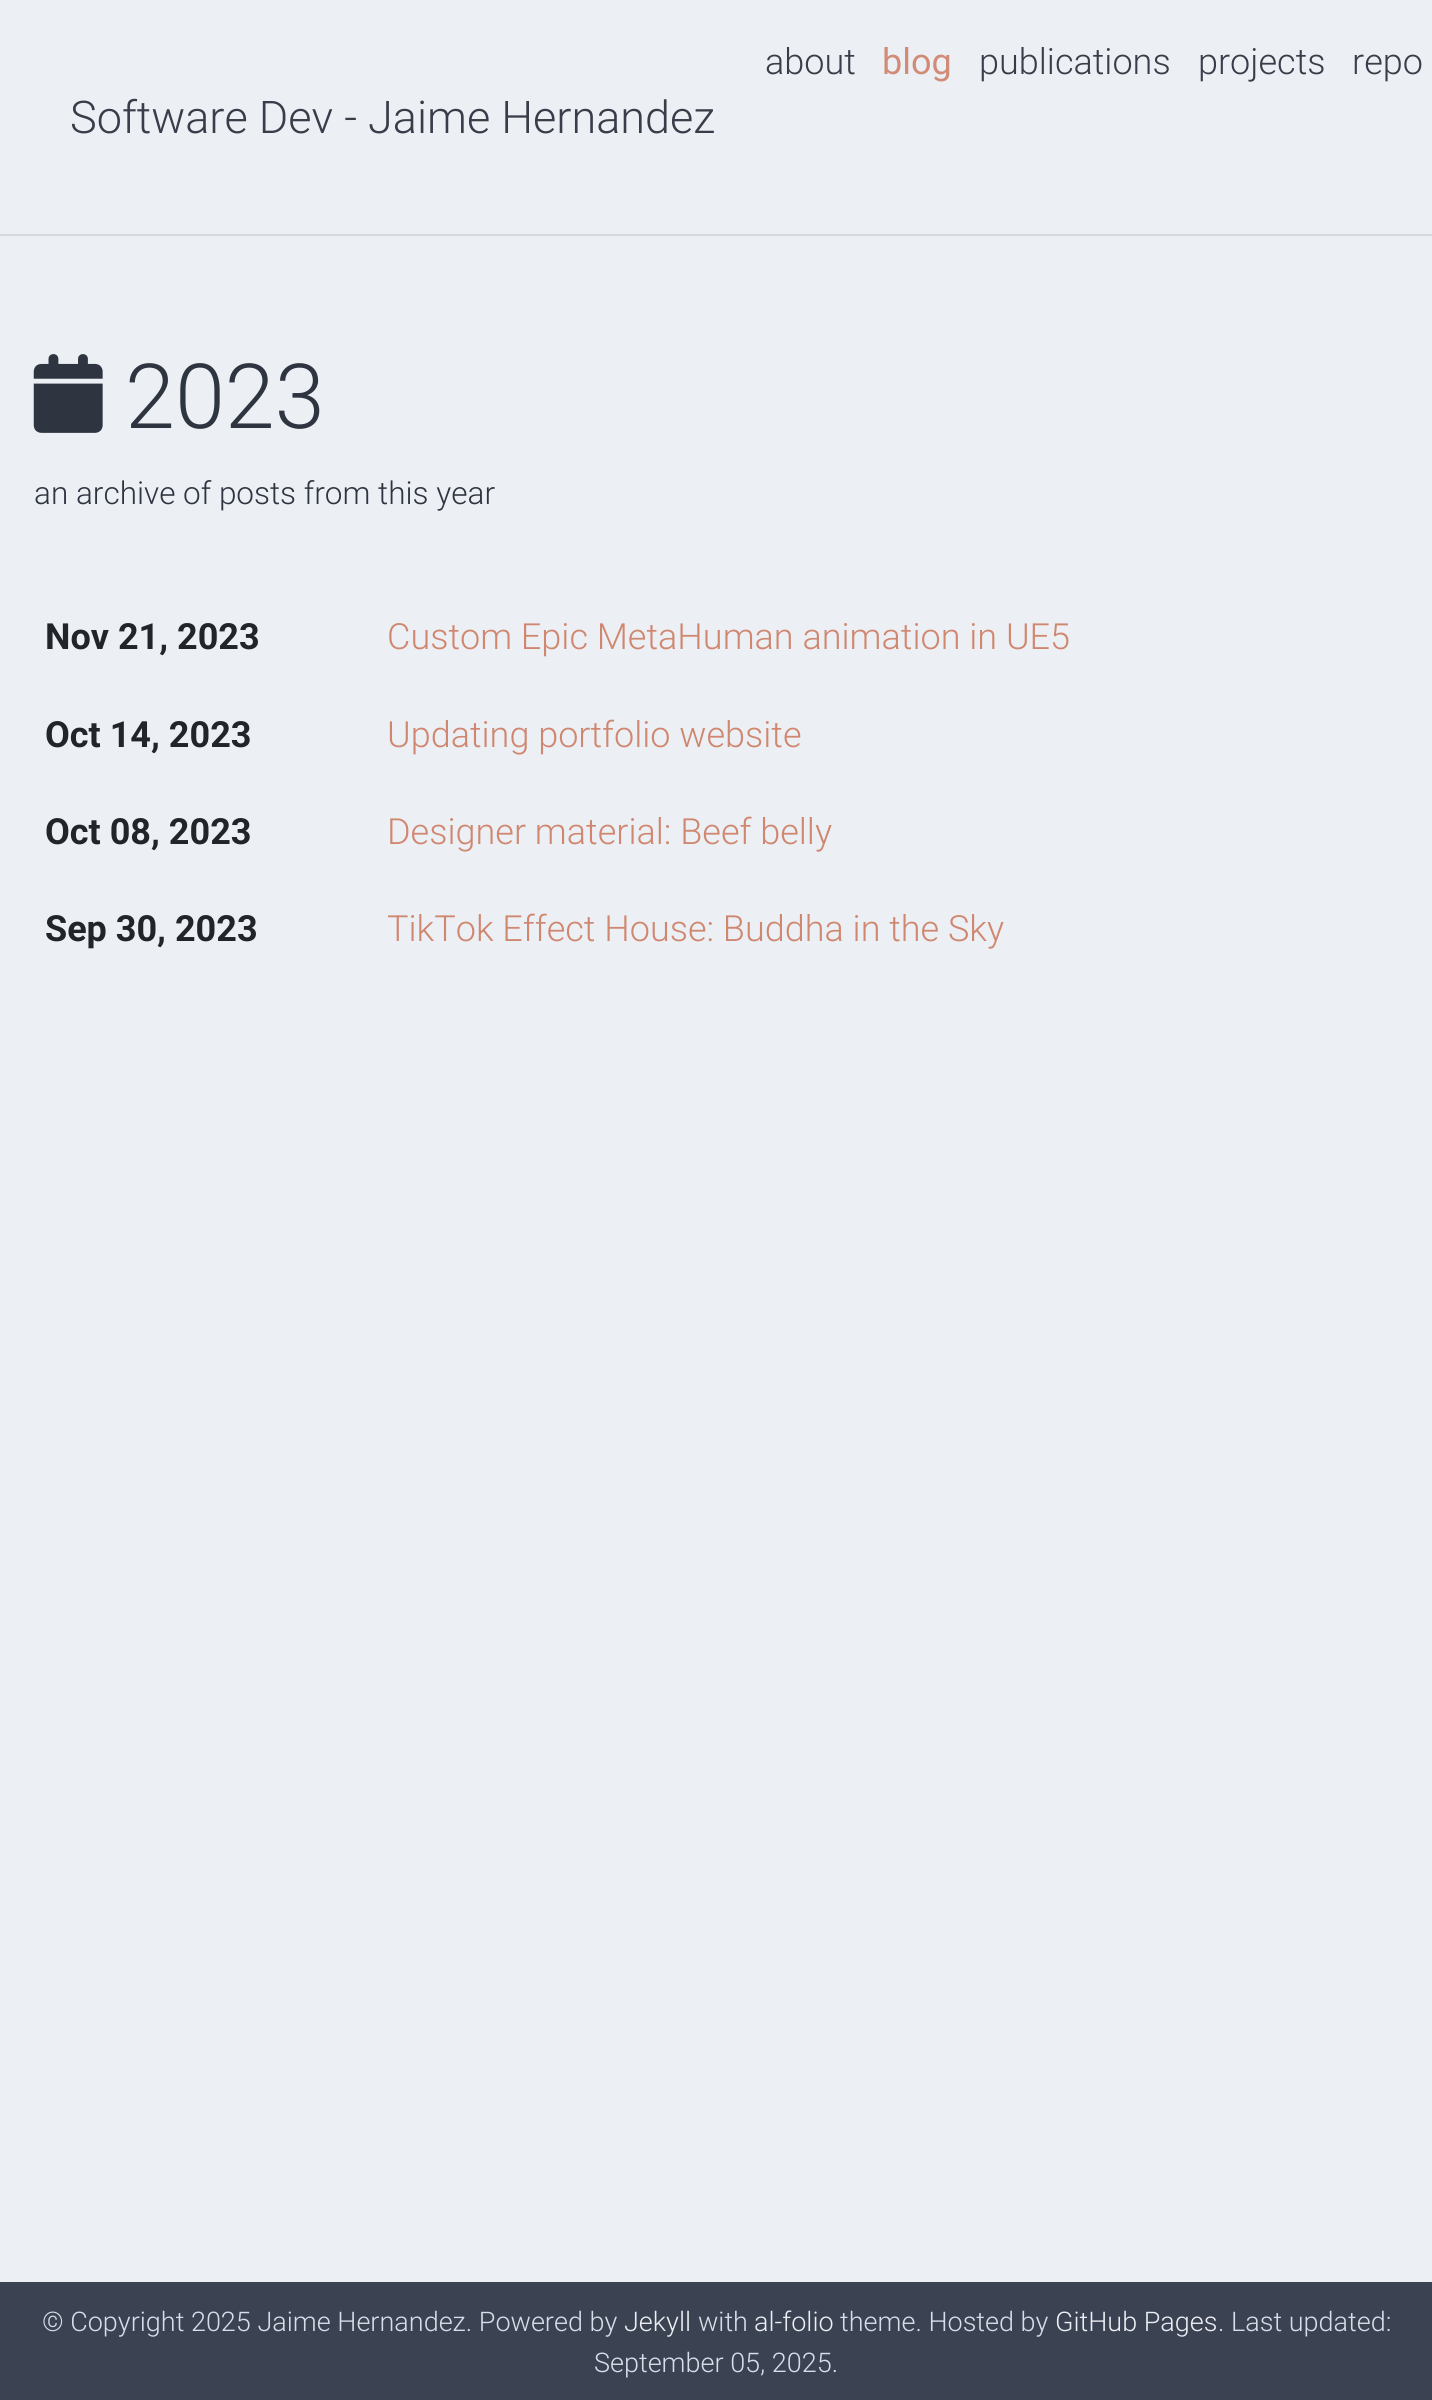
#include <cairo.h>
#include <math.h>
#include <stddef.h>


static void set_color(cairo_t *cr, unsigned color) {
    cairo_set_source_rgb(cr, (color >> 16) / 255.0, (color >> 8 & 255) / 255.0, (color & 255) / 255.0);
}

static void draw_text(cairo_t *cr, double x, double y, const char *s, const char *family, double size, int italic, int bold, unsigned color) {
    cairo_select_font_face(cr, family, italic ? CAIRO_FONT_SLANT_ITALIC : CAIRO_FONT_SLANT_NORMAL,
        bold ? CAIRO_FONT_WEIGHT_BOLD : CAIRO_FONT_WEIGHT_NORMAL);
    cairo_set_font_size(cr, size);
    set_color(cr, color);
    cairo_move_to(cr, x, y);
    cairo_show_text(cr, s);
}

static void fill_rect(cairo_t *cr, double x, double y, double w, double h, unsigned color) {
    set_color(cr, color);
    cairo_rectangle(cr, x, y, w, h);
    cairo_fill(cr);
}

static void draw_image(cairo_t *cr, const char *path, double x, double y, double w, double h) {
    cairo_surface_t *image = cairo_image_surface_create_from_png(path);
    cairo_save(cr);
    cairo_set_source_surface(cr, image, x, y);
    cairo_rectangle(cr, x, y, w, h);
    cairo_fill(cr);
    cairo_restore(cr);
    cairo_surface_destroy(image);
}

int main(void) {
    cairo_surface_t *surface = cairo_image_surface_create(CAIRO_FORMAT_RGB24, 1432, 2400);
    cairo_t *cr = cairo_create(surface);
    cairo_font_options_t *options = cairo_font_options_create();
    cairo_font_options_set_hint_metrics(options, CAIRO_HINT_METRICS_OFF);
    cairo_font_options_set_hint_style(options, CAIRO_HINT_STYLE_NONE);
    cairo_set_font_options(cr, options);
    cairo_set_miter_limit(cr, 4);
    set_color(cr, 0xECEFF4);
    cairo_paint(cr);
    fill_rect(cr, 0, 234, 1432, 2, 0xD6D8DD);
    draw_text(cr, 765, 74, "about", "Roboto Light", 36, 0, 0, 0x383D49);
    draw_text(cr, 882, 74, "blog", "Roboto", 36, 0, 0, 0xD18C77);
    draw_text(cr, 979, 74, "publications", "Roboto Light", 36, 0, 0, 0x383D49);
    draw_text(cr, 1198, 74, "projects", "Roboto Light", 36, 0, 0, 0x383D49);
    draw_text(cr, 1352, 74, "repo", "Roboto Light", 36, 0, 0, 0x383D49);
    draw_text(cr, 70, 133, "Software Dev - Jaime Hernandez", "Roboto Light", 45, 0, 0, 0x383D49);
    draw_image(cr, "assets/img1.png", 33, 354, 70, 79);
    draw_text(cr, 125, 428, "2023", "Roboto Light", 90, 0, 0, 0x2E3440);
    draw_text(cr, 34, 504, "an archive of posts from this year", "Roboto Light", 31.5, 0, 0, 0x2E3440);
    draw_text(cr, 45, 649, "Nov 21, 2023", "Roboto", 36, 0, 1, 0x212529);
    draw_text(cr, 387, 649, "Custom Epic MetaHuman animation in UE5", "Roboto Light", 36, 0, 0, 0xD08770);
    draw_text(cr, 45, 747, "Oct 14, 2023", "Roboto", 36, 0, 1, 0x212529);
    draw_text(cr, 387, 747, "Updating portfolio website", "Roboto Light", 36, 0, 0, 0xD08770);
    draw_text(cr, 45, 844, "Oct 08, 2023", "Roboto", 36, 0, 1, 0x212529);
    draw_text(cr, 387, 844, "Designer material: Beef belly", "Roboto Light", 36, 0, 0, 0xD08770);
    draw_text(cr, 45, 941, "Sep 30, 2023", "Roboto", 36, 0, 1, 0x212529);
    draw_text(cr, 387, 941, "TikTok Effect House: Buddha in the Sky", "Roboto Light", 36, 0, 0, 0xD08770);
    fill_rect(cr, 0, 2282, 1432, 118, 0x3B4252);
    draw_text(cr, 42, 2331, "© Copyright 2025 Jaime Hernandez. Powered by", "Roboto Light", 27, 0, 0, 0xD8DEE9);
    draw_text(cr, 624, 2331, "Jekyll", "Roboto Light", 27, 0, 0, 0xECEFF4);
    draw_text(cr, 698, 2331, "with", "Roboto Light", 27, 0, 0, 0xD8DEE9);
    draw_text(cr, 754, 2331, "al-folio", "Roboto Light", 27, 0, 0, 0xECEFF4);
    draw_text(cr, 840, 2331, "theme. Hosted by", "Roboto Light", 27, 0, 0, 0xD8DEE9);
    draw_text(cr, 1055, 2331, "GitHub Pages", "Roboto Light", 27, 0, 0, 0xECEFF4);
    draw_text(cr, 1218, 2331, ". Last updated:", "Roboto Light", 27, 0, 0, 0xD8DEE9);
    draw_text(cr, 594, 2372, "September 05, 2025.", "Roboto Light", 27, 0, 0, 0xD8DEE9);
    cairo_surface_write_to_png(surface, "output.png");
    cairo_font_options_destroy(options);
    cairo_destroy(cr);
    cairo_surface_destroy(surface);
    return 0;
}
